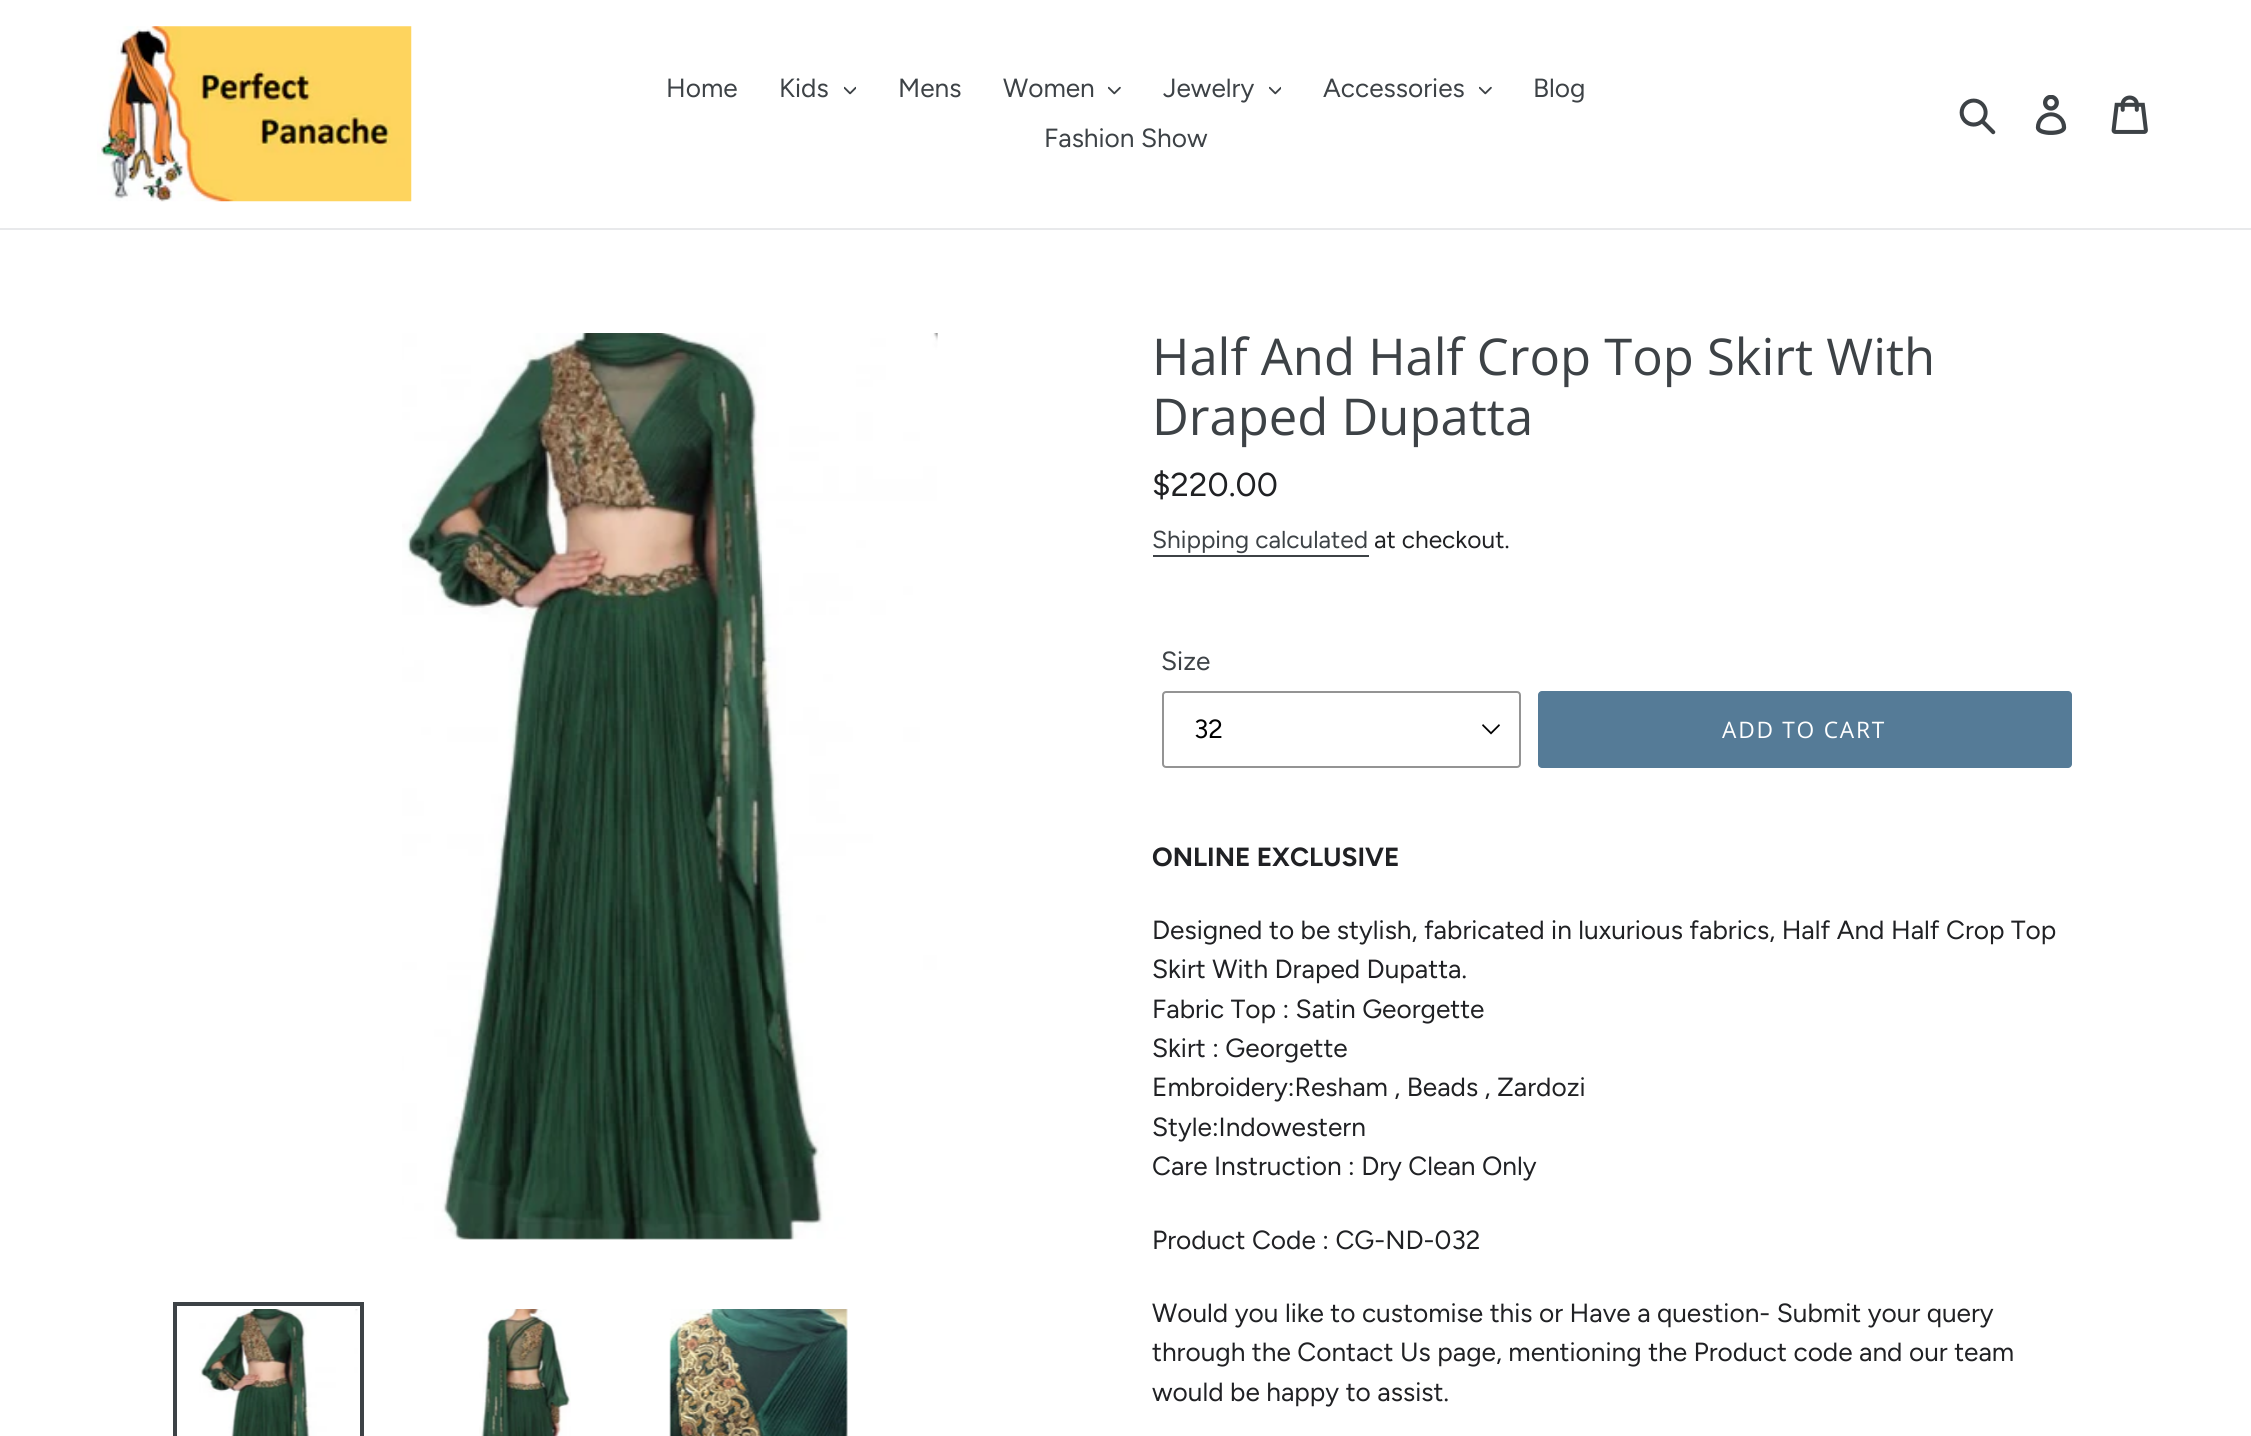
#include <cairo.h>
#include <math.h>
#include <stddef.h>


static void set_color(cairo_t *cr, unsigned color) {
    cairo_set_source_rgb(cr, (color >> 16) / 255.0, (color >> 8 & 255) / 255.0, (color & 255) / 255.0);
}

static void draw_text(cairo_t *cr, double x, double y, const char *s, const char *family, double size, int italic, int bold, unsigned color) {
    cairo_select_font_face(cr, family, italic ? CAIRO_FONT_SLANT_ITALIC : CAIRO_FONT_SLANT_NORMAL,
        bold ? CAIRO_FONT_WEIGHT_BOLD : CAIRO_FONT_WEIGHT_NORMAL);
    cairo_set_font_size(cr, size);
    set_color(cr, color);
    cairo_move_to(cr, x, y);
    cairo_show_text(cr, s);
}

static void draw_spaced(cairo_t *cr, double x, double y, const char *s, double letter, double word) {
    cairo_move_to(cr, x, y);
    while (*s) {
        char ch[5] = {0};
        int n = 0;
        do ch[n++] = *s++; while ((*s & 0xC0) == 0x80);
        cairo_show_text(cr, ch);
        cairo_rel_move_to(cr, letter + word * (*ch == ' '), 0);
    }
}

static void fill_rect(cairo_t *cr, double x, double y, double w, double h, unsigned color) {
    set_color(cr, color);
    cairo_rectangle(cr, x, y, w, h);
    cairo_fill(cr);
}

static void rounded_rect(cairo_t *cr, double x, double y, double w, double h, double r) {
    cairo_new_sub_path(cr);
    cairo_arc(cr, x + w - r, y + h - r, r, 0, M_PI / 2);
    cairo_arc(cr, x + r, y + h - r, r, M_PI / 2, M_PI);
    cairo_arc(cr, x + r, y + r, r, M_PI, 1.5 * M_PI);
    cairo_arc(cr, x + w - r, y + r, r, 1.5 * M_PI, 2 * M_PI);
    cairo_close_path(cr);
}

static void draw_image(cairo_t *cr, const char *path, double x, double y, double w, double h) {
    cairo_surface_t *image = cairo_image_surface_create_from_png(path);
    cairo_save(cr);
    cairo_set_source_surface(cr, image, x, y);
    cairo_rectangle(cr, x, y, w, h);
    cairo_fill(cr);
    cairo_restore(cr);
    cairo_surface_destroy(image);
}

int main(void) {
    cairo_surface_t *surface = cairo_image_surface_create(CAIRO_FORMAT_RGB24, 2251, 1436);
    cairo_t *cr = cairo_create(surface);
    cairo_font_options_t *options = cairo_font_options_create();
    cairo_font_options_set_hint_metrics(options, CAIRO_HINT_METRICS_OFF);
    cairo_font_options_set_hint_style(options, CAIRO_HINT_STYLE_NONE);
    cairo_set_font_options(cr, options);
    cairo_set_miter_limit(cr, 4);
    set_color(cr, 0xFFFFFF);
    cairo_paint(cr);
    fill_rect(cr, 0, 228, 2251, 2, 0xE8E9EB);
    draw_image(cr, "assets/img1.png", 97, 26, 315, 176);
    draw_text(cr, 666, 97, "Home", "Figtree", 26.25, 0, 0, 0x3D4246);
    draw_text(cr, 779, 97, "Kids", "Figtree", 26.25, 0, 0, 0x3D4246);
    draw_image(cr, "assets/img2.png", 844, 86, 12, 9);
    draw_text(cr, 898, 97, "Mens", "Figtree", 26.25, 0, 0, 0x3D4246);
    draw_text(cr, 1003, 97, "Women", "Figtree", 26.25, 0, 0, 0x3D4246);
    draw_image(cr, "assets/img3.png", 1108, 86, 13, 9);
    draw_text(cr, 1163, 97, "Jewelry", "Figtree", 26.25, 0, 0, 0x3D4246);
    draw_image(cr, "assets/img4.png", 1269, 86, 12, 9);
    draw_text(cr, 1323, 97, "Accessories", "Figtree", 26.25, 0, 0, 0x3D4246);
    draw_image(cr, "assets/img3.png", 1479, 86, 13, 9);
    draw_text(cr, 1533, 97, "Blog", "Figtree", 26.25, 0, 0, 0x3D4246);
    draw_text(cr, 1044, 147, "Fashion Show", "Figtree", 26.25, 0, 0, 0x3D4246);
    draw_image(cr, "assets/img5.png", 1959, 98, 37, 37);
    draw_image(cr, "assets/img6.png", 2035, 95, 32, 40);
    draw_image(cr, "assets/img7.png", 2111, 95, 37, 39);
    draw_image(cr, "assets/img8.png", 402, 333, 536, 907);
    cairo_rectangle(cr, 175, 1304, 187, 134);
    cairo_set_line_width(cr, 4);
    cairo_stroke(cr);
    draw_image(cr, "assets/img9.png", 199, 1309, 159, 127);
    draw_image(cr, "assets/img10.png", 479, 1309, 92, 127);
    draw_image(cr, "assets/img11.png", 669, 1309, 179, 127);
    draw_text(cr, 1152, 375, "Half And Half Crop Top Skirt With", "Open Sans", 50.75, 0, 0, 0x3D4246);
    draw_text(cr, 1152, 435, "Draped Dupatta", "Open Sans", 50.75, 0, 0, 0x3D4246);
    draw_text(cr, 1152, 496, "$220.00", "Figtree", 33, 0, 0, 0x202124);
    draw_text(cr, 1152, 548, "Shipping calculated", "Figtree", 24.5, 0, 0, 0x3D4246);
    fill_rect(cr, 1153, 555, 216, 2, 0x3D4246);
    draw_text(cr, 1374, 548, "at checkout.", "Figtree", 24.5, 0, 0, 0x202124);
    draw_text(cr, 1161, 670, "Size", "Figtree", 26.25, 0, 0, 0x3D4246);
    set_color(cr, 0x000000);
    cairo_new_path(cr);
    cairo_move_to(cr, 1491, 734.5);
    cairo_line_to(cr, 1482, 725.5);
    cairo_line_to(cr, 1483, 724);
    cairo_line_to(cr, 1491, 732);
    cairo_line_to(cr, 1499, 724);
    cairo_line_to(cr, 1500, 725.5);
    cairo_close_path(cr);
    cairo_fill(cr);
    rounded_rect(cr, 1163, 692, 357, 75, 3);
    set_color(cr, 0x949494);
    cairo_set_line_width(cr, 2);
    cairo_stroke(cr);
    draw_text(cr, 1194, 738, "32", "Figtree", 26.25, 0, 0, 0x000000);
    set_color(cr, 0x557B97);
    rounded_rect(cr, 1538, 691, 534, 77, 4);
    cairo_fill(cr);
    cairo_select_font_face(cr, "Open Sans", CAIRO_FONT_SLANT_NORMAL, CAIRO_FONT_WEIGHT_NORMAL);
    cairo_set_font_size(cr, 22.75);
    set_color(cr, 0xFFFFFF);
    draw_spaced(cr, 1722, 738, "ADD TO CART", 1.75, 0);
    draw_text(cr, 1152, 866, "ONLINE EXCLUSIVE", "Figtree", 26.25, 0, 1, 0x202124);
    draw_text(cr, 1152, 939, "Designed to be stylish, fabricated in luxurious fabrics, Half And Half Crop Top", "Figtree", 26.25, 0, 0, 0x202124);
    draw_text(cr, 1152, 978, "Skirt With Draped Dupatta.", "Figtree", 26.25, 0, 0, 0x202124);
    draw_text(cr, 1152, 1018, "Fabric Top : Satin Georgette", "Figtree", 26.25, 0, 0, 0x202124);
    draw_text(cr, 1152, 1057, "Skirt : Georgette", "Figtree", 26.25, 0, 0, 0x202124);
    draw_text(cr, 1152, 1096, "Embroidery:Resham , Beads , Zardozi", "Figtree", 26.25, 0, 0, 0x202124);
    draw_text(cr, 1152, 1136, "Style:Indowestern", "Figtree", 26.25, 0, 0, 0x202124);
    draw_text(cr, 1152, 1175, "Care Instruction : Dry Clean Only", "Figtree", 26.25, 0, 0, 0x202124);
    draw_text(cr, 1152, 1249, "Product Code : CG-ND-032", "Figtree", 26.25, 0, 0, 0x202124);
    draw_text(cr, 1152, 1322, "Would you like to customise this or Have a question- Submit your query", "Figtree", 26.25, 0, 0, 0x202124);
    draw_text(cr, 1152, 1361, "through the Contact Us page, mentioning the Product code and our team", "Figtree", 26.25, 0, 0, 0x202124);
    draw_text(cr, 1152, 1401, "would be happy to assist.", "Figtree", 26.25, 0, 0, 0x202124);
    cairo_surface_write_to_png(surface, "output.png");
    cairo_font_options_destroy(options);
    cairo_destroy(cr);
    cairo_surface_destroy(surface);
    return 0;
}
